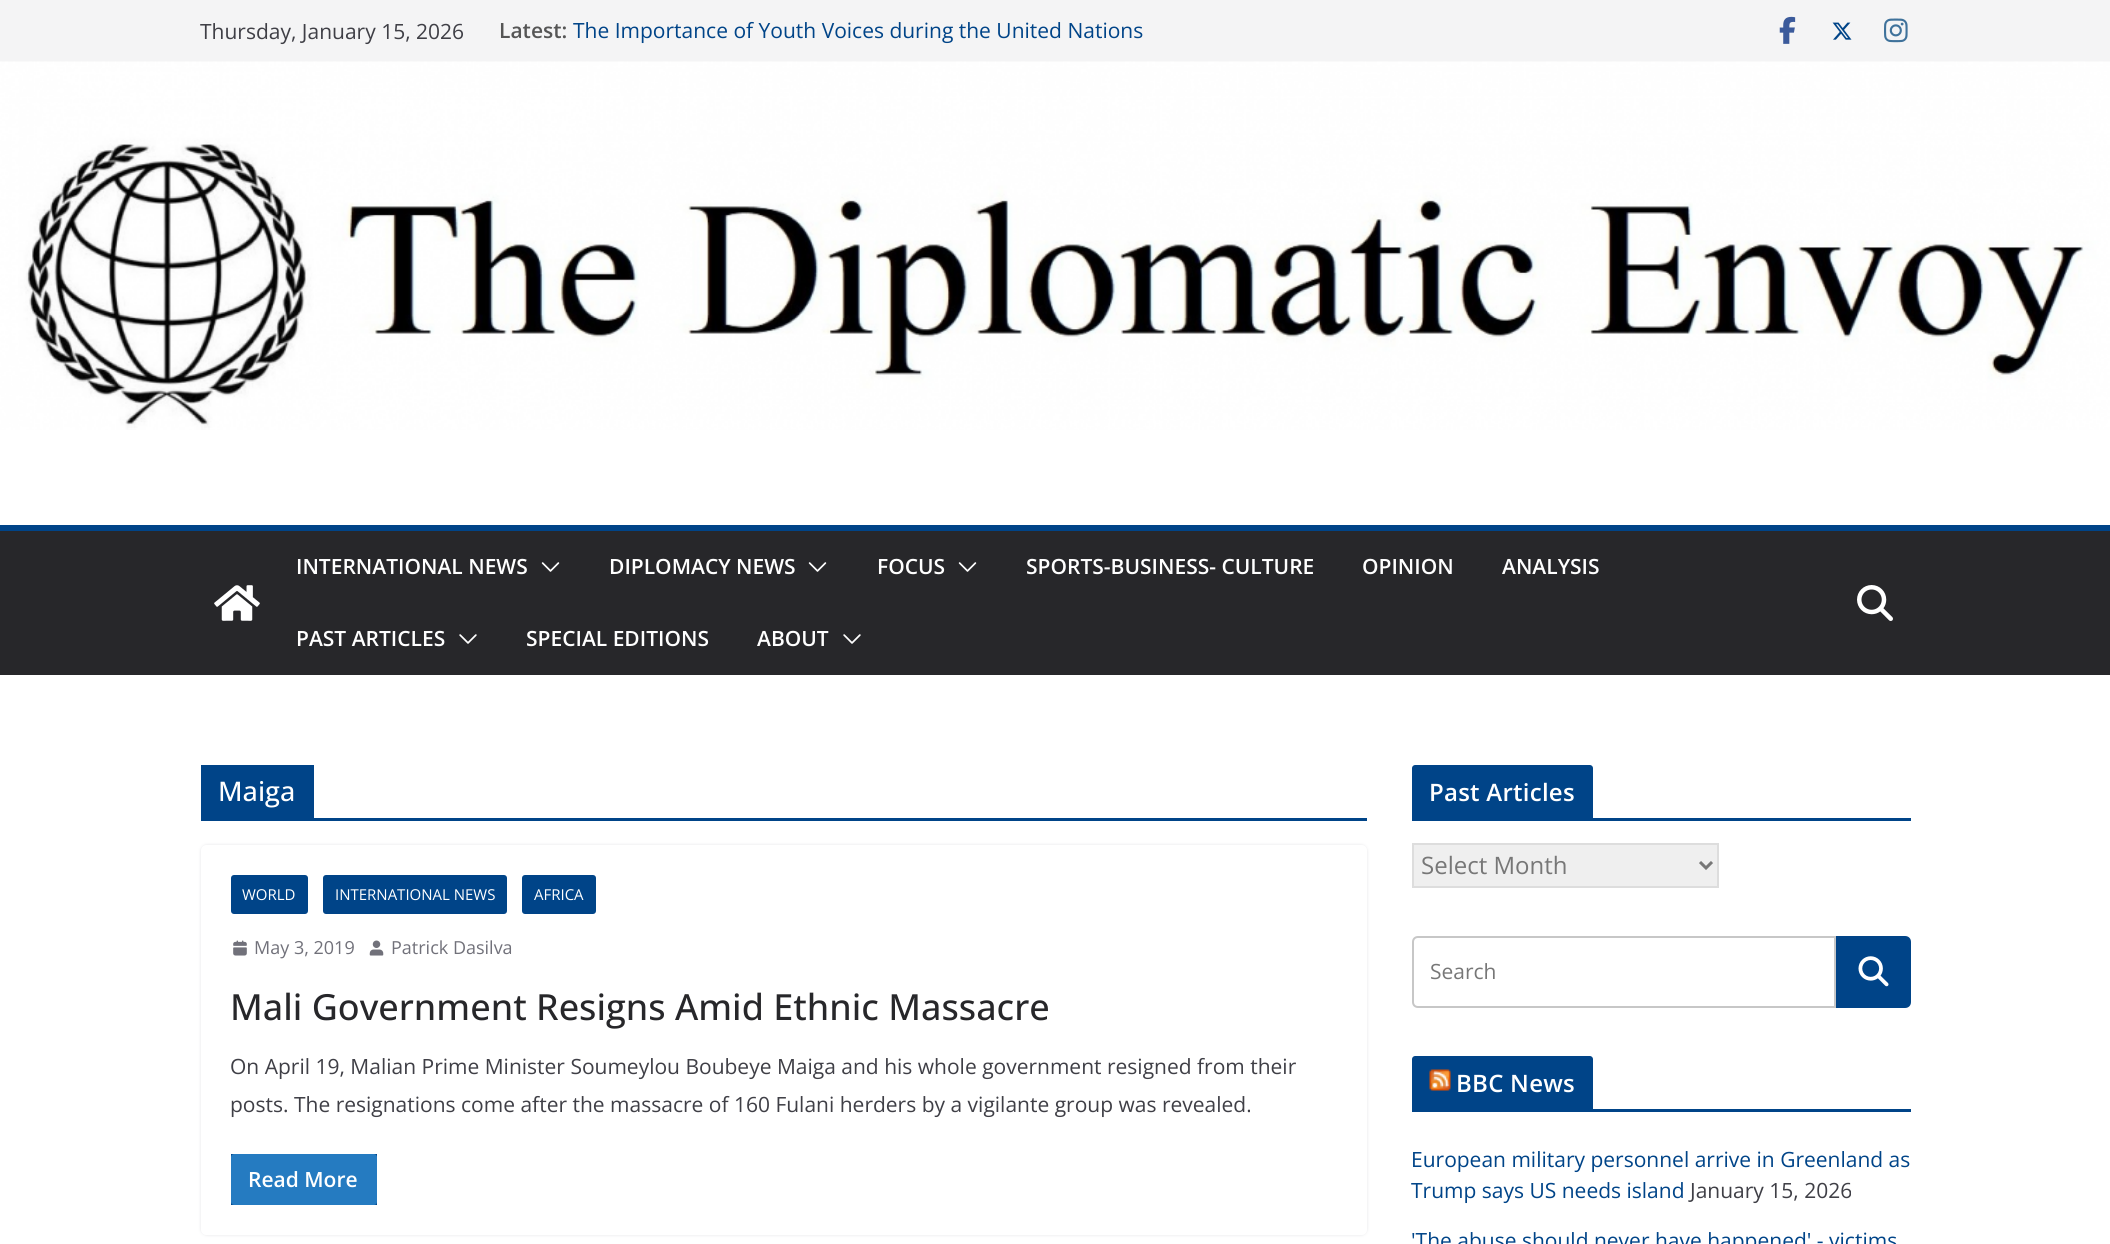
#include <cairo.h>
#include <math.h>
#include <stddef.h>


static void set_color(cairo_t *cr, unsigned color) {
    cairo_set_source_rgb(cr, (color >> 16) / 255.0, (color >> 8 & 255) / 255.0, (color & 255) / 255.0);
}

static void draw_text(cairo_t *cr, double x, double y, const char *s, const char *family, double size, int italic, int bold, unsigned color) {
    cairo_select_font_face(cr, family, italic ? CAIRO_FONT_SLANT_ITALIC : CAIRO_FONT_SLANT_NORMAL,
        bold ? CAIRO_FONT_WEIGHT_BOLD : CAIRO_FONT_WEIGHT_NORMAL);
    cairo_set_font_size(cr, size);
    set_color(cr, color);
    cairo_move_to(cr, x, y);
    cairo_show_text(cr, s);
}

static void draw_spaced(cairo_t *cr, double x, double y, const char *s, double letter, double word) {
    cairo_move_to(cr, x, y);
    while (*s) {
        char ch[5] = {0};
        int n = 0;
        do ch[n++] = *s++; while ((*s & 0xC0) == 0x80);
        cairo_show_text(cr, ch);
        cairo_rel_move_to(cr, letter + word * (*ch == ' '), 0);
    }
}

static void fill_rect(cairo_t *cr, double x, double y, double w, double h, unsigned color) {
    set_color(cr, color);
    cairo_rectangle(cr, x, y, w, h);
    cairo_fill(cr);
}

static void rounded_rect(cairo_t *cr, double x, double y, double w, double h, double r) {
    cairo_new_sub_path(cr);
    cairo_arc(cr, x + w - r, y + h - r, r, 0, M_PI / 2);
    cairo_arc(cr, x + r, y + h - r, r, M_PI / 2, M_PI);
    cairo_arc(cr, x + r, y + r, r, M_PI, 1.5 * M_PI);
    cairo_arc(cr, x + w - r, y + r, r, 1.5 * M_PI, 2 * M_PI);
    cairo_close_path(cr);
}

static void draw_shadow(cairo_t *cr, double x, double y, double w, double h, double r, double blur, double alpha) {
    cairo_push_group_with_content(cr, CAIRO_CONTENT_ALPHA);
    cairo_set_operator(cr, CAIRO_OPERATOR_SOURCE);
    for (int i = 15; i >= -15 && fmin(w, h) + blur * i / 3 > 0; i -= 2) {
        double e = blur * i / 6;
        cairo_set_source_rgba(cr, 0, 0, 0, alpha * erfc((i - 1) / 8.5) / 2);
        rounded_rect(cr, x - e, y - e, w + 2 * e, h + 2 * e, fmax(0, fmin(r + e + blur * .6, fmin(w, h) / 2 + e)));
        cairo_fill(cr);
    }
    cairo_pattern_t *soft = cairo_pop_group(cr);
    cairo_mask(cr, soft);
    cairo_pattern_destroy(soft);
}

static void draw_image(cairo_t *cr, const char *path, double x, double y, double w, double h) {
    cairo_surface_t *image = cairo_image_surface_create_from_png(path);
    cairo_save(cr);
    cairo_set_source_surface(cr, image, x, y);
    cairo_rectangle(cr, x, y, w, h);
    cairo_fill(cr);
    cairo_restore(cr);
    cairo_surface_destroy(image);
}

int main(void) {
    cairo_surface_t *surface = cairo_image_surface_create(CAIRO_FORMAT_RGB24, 2110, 1244);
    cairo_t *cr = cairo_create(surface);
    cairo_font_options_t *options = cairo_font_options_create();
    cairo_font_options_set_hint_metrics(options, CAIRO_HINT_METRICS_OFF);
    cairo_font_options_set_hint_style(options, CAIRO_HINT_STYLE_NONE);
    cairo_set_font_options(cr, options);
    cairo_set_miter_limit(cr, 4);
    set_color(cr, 0xFFFFFF);
    cairo_paint(cr);
    fill_rect(cr, 0, 0, 2110, 62, 0xF4F4F5);
    draw_text(cr, 200, 39, "Thursday, January 15, 2026", "Open Sans", 21, 0, 0, 0x3F3F46);
    draw_text(cr, 499, 38, "Latest:", "Open Sans SemiBold", 21, 0, 0, 0x555555);
    draw_text(cr, 573, 38, "The Importance of Youth Voices during the United Nations", "Open Sans", 21, 0, 0, 0x004488);
    draw_image(cr, "assets/img1.png", 1779, 16, 17, 28);
    draw_image(cr, "assets/img2.png", 1832, 22, 20, 18);
    draw_image(cr, "assets/img3.png", 1884, 18, 24, 25);
    draw_image(cr, "assets/img4.png", 0, 61, 2110, 369);
    fill_rect(cr, 0, 531, 2110, 144, 0x27272A);
    fill_rect(cr, 0, 525, 2110, 6, 0x004488);
    draw_image(cr, "assets/img5.png", 214, 585, 46, 36);
    draw_text(cr, 296, 574, "INTERNATIONAL NEWS", "Open Sans SemiBold", 21, 0, 0, 0xFFFFFF);
    draw_image(cr, "assets/img6.png", 541, 562, 19, 10);
    draw_text(cr, 609, 574, "DIPLOMACY NEWS", "Open Sans SemiBold", 21, 0, 0, 0xFFFFFF);
    draw_image(cr, "assets/img6.png", 808, 562, 19, 10);
    draw_text(cr, 877, 574, "FOCUS", "Open Sans SemiBold", 21, 0, 0, 0xFFFFFF);
    draw_image(cr, "assets/img6.png", 958, 562, 19, 10);
    draw_text(cr, 1026, 574, "SPORTS-BUSINESS- CULTURE", "Open Sans SemiBold", 21, 0, 0, 0xFFFFFF);
    draw_text(cr, 1362, 574, "OPINION", "Open Sans SemiBold", 21, 0, 0, 0xFFFFFF);
    draw_text(cr, 1502, 574, "ANALYSIS", "Open Sans SemiBold", 21, 0, 0, 0xFFFFFF);
    draw_text(cr, 296, 646, "PAST ARTICLES", "Open Sans SemiBold", 21, 0, 0, 0xFFFFFF);
    draw_image(cr, "assets/img7.png", 459, 634, 18, 10);
    draw_text(cr, 526, 646, "SPECIAL EDITIONS", "Open Sans SemiBold", 21, 0, 0, 0xFFFFFF);
    draw_text(cr, 757, 646, "ABOUT", "Open Sans SemiBold", 21, 0, 0, 0xFFFFFF);
    draw_image(cr, "assets/img7.png", 843, 634, 18, 10);
    draw_image(cr, "assets/img8.png", 1857, 585, 36, 36);
    fill_rect(cr, 201, 818, 1166, 3, 0x004488);
    fill_rect(cr, 201, 765, 113, 53, 0x004488);
    draw_text(cr, 218, 801, "Maiga", "Open Sans Medium", 27, 0, 0, 0xFFFFFF);
    cairo_save(cr);
    cairo_set_fill_rule(cr, CAIRO_FILL_RULE_EVEN_ODD);
    cairo_new_path(cr);
    cairo_move_to(cr, 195, 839);
    cairo_line_to(cr, 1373, 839);
    cairo_line_to(cr, 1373, 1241);
    cairo_line_to(cr, 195, 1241);
    cairo_close_path(cr);
    cairo_move_to(cr, 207, 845);
    cairo_line_to(cr, 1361, 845);
    cairo_curve_to(cr, 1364.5, 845, 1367, 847.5, 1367, 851);
    cairo_line_to(cr, 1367, 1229);
    cairo_curve_to(cr, 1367, 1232.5, 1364.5, 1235, 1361, 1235);
    cairo_line_to(cr, 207, 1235);
    cairo_curve_to(cr, 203.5, 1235, 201, 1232.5, 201, 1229);
    cairo_line_to(cr, 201, 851);
    cairo_curve_to(cr, 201, 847.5, 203.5, 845, 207, 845);
    cairo_close_path(cr);
    cairo_clip(cr);
    set_color(cr, 0xE4E4E7);
    draw_shadow(cr, 201, 845, 1166, 390, 6, 1.5, 1);
    cairo_restore(cr);
    set_color(cr, 0x004488);
    rounded_rect(cr, 231, 875, 77, 39, 3);
    cairo_fill(cr);
    draw_text(cr, 242, 900, "WORLD", "Open Sans", 15, 0, 0, 0xFFFFFF);
    set_color(cr, 0x004488);
    rounded_rect(cr, 323, 875, 184, 39, 3);
    cairo_fill(cr);
    draw_text(cr, 335, 900, "INTERNATIONAL NEWS", "Open Sans", 15, 0, 0, 0xFFFFFF);
    set_color(cr, 0x004488);
    rounded_rect(cr, 522, 875, 74, 39, 3);
    cairo_fill(cr);
    draw_text(cr, 534, 900, "AFRICA", "Open Sans", 15, 0, 0, 0xFFFFFF);
    draw_image(cr, "assets/img9.png", 233, 940, 14, 16);
    draw_text(cr, 254, 954, "May 3, 2019", "Open Sans", 18, 0, 0, 0x71717A);
    draw_image(cr, "assets/img10.png", 369, 940, 15, 16);
    draw_text(cr, 391, 954, "Patrick Dasilva", "Open Sans", 18, 0, 0, 0x71717A);
    draw_text(cr, 230, 1020, "Mali Government Resigns Amid Ethnic Massacre", "Open Sans Medium", 36, 0, 0, 0x27272A);
    draw_text(cr, 230, 1074, "On April 19, Malian Prime Minister Soumeylou Boubeye Maiga and his whole government resigned from their", "Open Sans", 21, 0, 0, 0x3F3F46);
    draw_text(cr, 230, 1112, "posts. The resignations come after the massacre of 160 Fulani herders by a vigilante group was revealed.", "Open Sans", 21, 0, 0, 0x3F3F46);
    fill_rect(cr, 231, 1154, 146, 51, 0x004488);
    set_color(cr, 0x257BC1);
    rounded_rect(cr, 231, 1154, 146, 51, 3);
    cairo_fill(cr);
    draw_text(cr, 248, 1187, "Read More", "Open Sans SemiBold", 21, 0, 0, 0xFFFFFF);
    fill_rect(cr, 1412, 818, 499, 3, 0x004488);
    cairo_new_path(cr);
    cairo_move_to(cr, 1415, 765);
    cairo_line_to(cr, 1590, 765);
    cairo_curve_to(cr, 1591.5, 765, 1593, 766.5, 1593, 768);
    cairo_line_to(cr, 1593, 818);
    cairo_line_to(cr, 1412, 818);
    cairo_line_to(cr, 1412, 768);
    cairo_curve_to(cr, 1412, 766.5, 1413.5, 765, 1415, 765);
    cairo_close_path(cr);
    cairo_fill(cr);
    cairo_set_font_size(cr, 24);
    set_color(cr, 0xFFFFFF);
    draw_spaced(cr, 1429, 801, "Past Articles", 0.25, 0);
    set_color(cr, 0xEFEFEF);
    cairo_rectangle(cr, 1413, 844, 305, 43);
    cairo_fill_preserve(cr);
    set_color(cr, 0xDDDDDD);
    cairo_stroke(cr);
    cairo_new_path(cr);
    cairo_move_to(cr, 1700, 862);
    cairo_line_to(cr, 1706, 868);
    cairo_line_to(cr, 1712, 862);
    set_color(cr, 0x777777);
    cairo_set_line_width(cr, 3);
    cairo_stroke(cr);
    draw_text(cr, 1421, 874, "Select Month", "Open Sans", 24, 0, 0, 0x777777);
    cairo_new_path(cr);
    cairo_move_to(cr, 1418, 937);
    cairo_line_to(cr, 1835, 937);
    cairo_line_to(cr, 1835, 1007);
    cairo_line_to(cr, 1418, 1007);
    cairo_curve_to(cr, 1415, 1007, 1413, 1005, 1413, 1002);
    cairo_line_to(cr, 1413, 942);
    cairo_curve_to(cr, 1413, 939, 1415, 937, 1418, 937);
    cairo_close_path(cr);
    set_color(cr, 0xC7C7C7);
    cairo_set_line_width(cr, 2);
    cairo_stroke(cr);
    draw_text(cr, 1430, 979, "Search", "Open Sans", 21, 0, 0, 0x777777);
    set_color(cr, 0x004488);
    cairo_new_path(cr);
    cairo_move_to(cr, 1837, 937);
    cairo_line_to(cr, 1905, 937);
    cairo_curve_to(cr, 1908, 937, 1910, 939, 1910, 942);
    cairo_line_to(cr, 1910, 1002);
    cairo_curve_to(cr, 1910, 1005, 1908, 1007, 1905, 1007);
    cairo_line_to(cr, 1837, 1007);
    cairo_close_path(cr);
    cairo_fill_preserve(cr);
    cairo_stroke(cr);
    draw_image(cr, "assets/img11.png", 1858, 956, 31, 31);
    fill_rect(cr, 1412, 1109, 499, 3, 0x004488);
    cairo_new_path(cr);
    cairo_move_to(cr, 1415, 1056);
    cairo_line_to(cr, 1590, 1056);
    cairo_curve_to(cr, 1591.5, 1056, 1593, 1057.5, 1593, 1059);
    cairo_line_to(cr, 1593, 1109);
    cairo_line_to(cr, 1412, 1109);
    cairo_line_to(cr, 1412, 1059);
    cairo_curve_to(cr, 1412, 1057.5, 1413.5, 1056, 1415, 1056);
    cairo_close_path(cr);
    cairo_fill(cr);
    draw_image(cr, "assets/img12.png", 1429, 1069, 22, 22);
    cairo_select_font_face(cr, "Open Sans SemiBold", CAIRO_FONT_SLANT_NORMAL, CAIRO_FONT_WEIGHT_NORMAL);
    cairo_set_font_size(cr, 24);
    set_color(cr, 0xFFFFFF);
    draw_spaced(cr, 1456, 1092, "BBC News", 0.25, 0);
    draw_text(cr, 1411, 1167, "European military personnel arrive in Greenland as", "Open Sans", 21, 0, 0, 0x004488);
    draw_text(cr, 1411, 1198, "Trump says US needs island", "Open Sans", 21, 0, 0, 0x004488);
    draw_text(cr, 1690, 1198, "January 15, 2026", "Open Sans", 21, 0, 0, 0x3F3F46);
    draw_text(cr, 1411, 1248, "'The abuse should never have happened' - victims", "Open Sans", 21, 0, 0, 0x004488);
    cairo_surface_write_to_png(surface, "output.png");
    cairo_font_options_destroy(options);
    cairo_destroy(cr);
    cairo_surface_destroy(surface);
    return 0;
}
